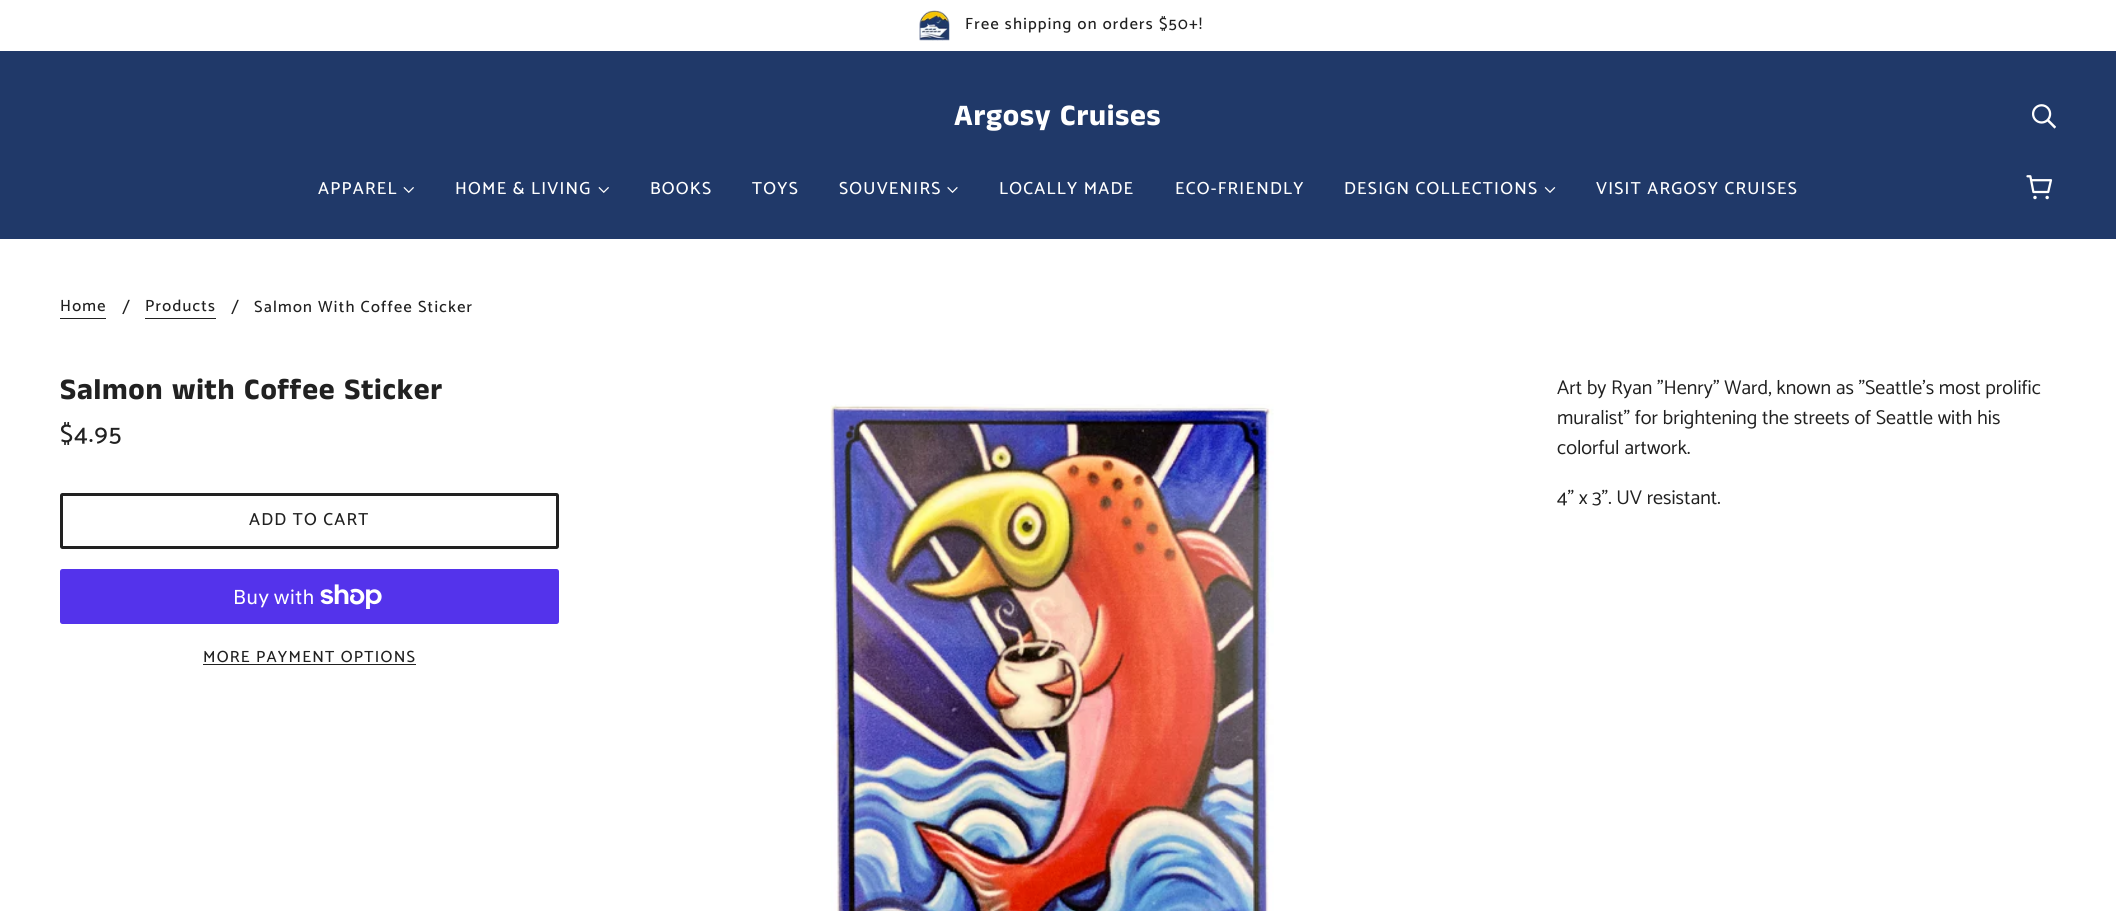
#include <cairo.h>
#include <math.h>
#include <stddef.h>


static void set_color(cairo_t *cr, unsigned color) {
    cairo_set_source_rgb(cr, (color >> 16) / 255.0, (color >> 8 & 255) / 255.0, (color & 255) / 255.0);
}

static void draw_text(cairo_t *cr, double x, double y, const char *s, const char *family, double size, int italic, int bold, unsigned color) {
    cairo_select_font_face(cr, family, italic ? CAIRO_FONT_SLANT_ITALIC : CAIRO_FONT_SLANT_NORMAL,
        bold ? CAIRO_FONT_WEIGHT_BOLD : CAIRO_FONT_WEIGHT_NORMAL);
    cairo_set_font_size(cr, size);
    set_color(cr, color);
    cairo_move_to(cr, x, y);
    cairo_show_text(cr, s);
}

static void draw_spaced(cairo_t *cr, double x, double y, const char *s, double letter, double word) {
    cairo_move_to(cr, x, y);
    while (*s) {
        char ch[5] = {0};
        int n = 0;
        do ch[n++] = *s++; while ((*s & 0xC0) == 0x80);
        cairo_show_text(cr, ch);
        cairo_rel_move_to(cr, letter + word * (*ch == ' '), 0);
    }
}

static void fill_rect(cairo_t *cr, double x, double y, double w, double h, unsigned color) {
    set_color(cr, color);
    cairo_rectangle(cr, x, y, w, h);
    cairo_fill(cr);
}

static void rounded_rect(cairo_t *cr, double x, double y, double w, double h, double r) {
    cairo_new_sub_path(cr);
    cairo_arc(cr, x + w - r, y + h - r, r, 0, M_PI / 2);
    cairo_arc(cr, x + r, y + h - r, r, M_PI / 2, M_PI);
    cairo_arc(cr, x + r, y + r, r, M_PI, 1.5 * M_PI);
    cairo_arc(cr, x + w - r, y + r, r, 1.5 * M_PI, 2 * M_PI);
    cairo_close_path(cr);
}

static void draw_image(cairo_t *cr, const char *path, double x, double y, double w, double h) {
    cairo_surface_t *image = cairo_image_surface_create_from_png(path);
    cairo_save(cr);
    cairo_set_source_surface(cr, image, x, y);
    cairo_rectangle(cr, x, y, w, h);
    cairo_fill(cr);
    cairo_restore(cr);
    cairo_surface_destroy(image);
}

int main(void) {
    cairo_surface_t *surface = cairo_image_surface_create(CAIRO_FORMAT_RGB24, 2116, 911);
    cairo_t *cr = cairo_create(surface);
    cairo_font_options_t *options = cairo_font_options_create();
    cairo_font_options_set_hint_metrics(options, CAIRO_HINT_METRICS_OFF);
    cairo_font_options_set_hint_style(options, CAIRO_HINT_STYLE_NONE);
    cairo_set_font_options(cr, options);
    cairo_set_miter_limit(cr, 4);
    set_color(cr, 0xFFFFFF);
    cairo_paint(cr);
    draw_image(cr, "assets/img1.png", 919, 10, 31, 31);
    cairo_select_font_face(cr, "Catamaran Medium", CAIRO_FONT_SLANT_NORMAL, CAIRO_FONT_WEIGHT_NORMAL);
    cairo_set_font_size(cr, 16.25);
    set_color(cr, 0x212121);
    draw_spaced(cr, 965, 29, "Free shipping on orders $50+!", 1.25, 0);
    fill_rect(cr, 0, 51, 2116, 188, 0x203969);
    cairo_select_font_face(cr, "Anek Tamil", CAIRO_FONT_SLANT_NORMAL, CAIRO_FONT_WEIGHT_BOLD);
    cairo_set_font_size(cr, 30);
    set_color(cr, 0xFFFFFF);
    draw_spaced(cr, 954, 125, "Argosy Cruises", 0.75, 0);
    draw_image(cr, "assets/img2.png", 2032, 104, 24, 25);
    cairo_select_font_face(cr, "Catamaran Medium", CAIRO_FONT_SLANT_NORMAL, CAIRO_FONT_WEIGHT_NORMAL);
    cairo_set_font_size(cr, 17.5);
    draw_spaced(cr, 318, 194, "APPAREL", 1.25, 0);
    draw_image(cr, "assets/img3.png", 403, 187, 11, 6);
    draw_spaced(cr, 455, 194, "HOME & LIVING", 1.25, 0);
    draw_image(cr, "assets/img3.png", 598, 187, 11, 6);
    draw_spaced(cr, 650, 194, "BOOKS", 1.25, 0);
    draw_spaced(cr, 752, 194, "TOYS", 1.25, 0);
    draw_spaced(cr, 839, 194, "SOUVENIRS", 1.25, 0);
    draw_image(cr, "assets/img4.png", 947, 187, 11, 6);
    draw_spaced(cr, 999, 194, "LOCALLY MADE", 1.25, 0);
    draw_spaced(cr, 1175, 194, "ECO-FRIENDLY", 1.25, 0);
    draw_spaced(cr, 1344, 194, "DESIGN COLLECTIONS", 1.25, 0);
    draw_image(cr, "assets/img5.png", 1544, 187, 12, 6);
    draw_spaced(cr, 1596, 194, "VISIT ARGOSY CRUISES", 1.25, 0);
    draw_image(cr, "assets/img6.png", 2026, 175, 27, 25);
    cairo_set_font_size(cr, 16.25);
    set_color(cr, 0x212121);
    draw_spaced(cr, 60, 311, "Home", 1.25, 0);
    fill_rect(cr, 60, 318, 46, 1, 0x212121);
    draw_text(cr, 122, 314, "/", "Catamaran", 20, 0, 0, 0x212121);
    cairo_select_font_face(cr, "Catamaran Medium", CAIRO_FONT_SLANT_NORMAL, CAIRO_FONT_WEIGHT_NORMAL);
    cairo_set_font_size(cr, 16.25);
    draw_spaced(cr, 145, 311, "Products", 1.25, 0);
    fill_rect(cr, 145, 318, 71, 1, 0x212121);
    draw_text(cr, 231, 314, "/", "Catamaran", 20, 0, 0, 0x212121);
    cairo_select_font_face(cr, "Catamaran Medium", CAIRO_FONT_SLANT_NORMAL, CAIRO_FONT_WEIGHT_NORMAL);
    cairo_set_font_size(cr, 16.25);
    draw_spaced(cr, 254, 312, "Salmon With Coffee Sticker", 1.25, 0);
    cairo_select_font_face(cr, "Anek Tamil", CAIRO_FONT_SLANT_NORMAL, CAIRO_FONT_WEIGHT_BOLD);
    cairo_set_font_size(cr, 30);
    draw_spaced(cr, 60, 399, "Salmon with Coffee Sticker", 0.75, 0);
    draw_image(cr, "assets/img7.png", 830, 404, 444, 507);
    draw_text(cr, 1557, 394, "Art by Ryan \"Henry\" Ward, known as \"Seattle's most prolific", "Catamaran", 20, 0, 0, 0x212121);
    draw_text(cr, 1557, 424, "muralist\" for brightening the streets of Seattle with his", "Catamaran", 20, 0, 0, 0x212121);
    draw_text(cr, 1557, 454, "colorful artwork.", "Catamaran", 20, 0, 0, 0x212121);
    draw_text(cr, 1557, 504, "4\" x 3\". UV resistant.", "Catamaran", 20, 0, 0, 0x212121);
    cairo_select_font_face(cr, "Catamaran Medium", CAIRO_FONT_SLANT_NORMAL, CAIRO_FONT_WEIGHT_NORMAL);
    cairo_set_font_size(cr, 25);
    draw_spaced(cr, 60, 442, "$4.95", 1.25, 0);
    rounded_rect(cr, 61.5, 494.5, 496, 53, 1);
    cairo_set_line_width(cr, 3);
    cairo_stroke(cr);
    cairo_set_font_size(cr, 17.5);
    draw_spaced(cr, 249, 525, "ADD TO CART", 1.25, 0);
    set_color(cr, 0x5433EB);
    rounded_rect(cr, 60, 569, 499, 55, 2.5);
    cairo_fill(cr);
    draw_text(cr, 233, 604, "Buy with", "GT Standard", 20, 0, 0, 0xFFFFFF);
    draw_image(cr, "assets/img8.png", 320, 584, 62, 25);
    cairo_select_font_face(cr, "Catamaran Medium", CAIRO_FONT_SLANT_NORMAL, CAIRO_FONT_WEIGHT_NORMAL);
    cairo_set_font_size(cr, 16.25);
    set_color(cr, 0x212121);
    draw_spaced(cr, 203, 662, "MORE PAYMENT OPTIONS", 1.25, 0);
    fill_rect(cr, 203, 664, 213, 1, 0x212121);
    cairo_surface_write_to_png(surface, "output.png");
    cairo_font_options_destroy(options);
    cairo_destroy(cr);
    cairo_surface_destroy(surface);
    return 0;
}
